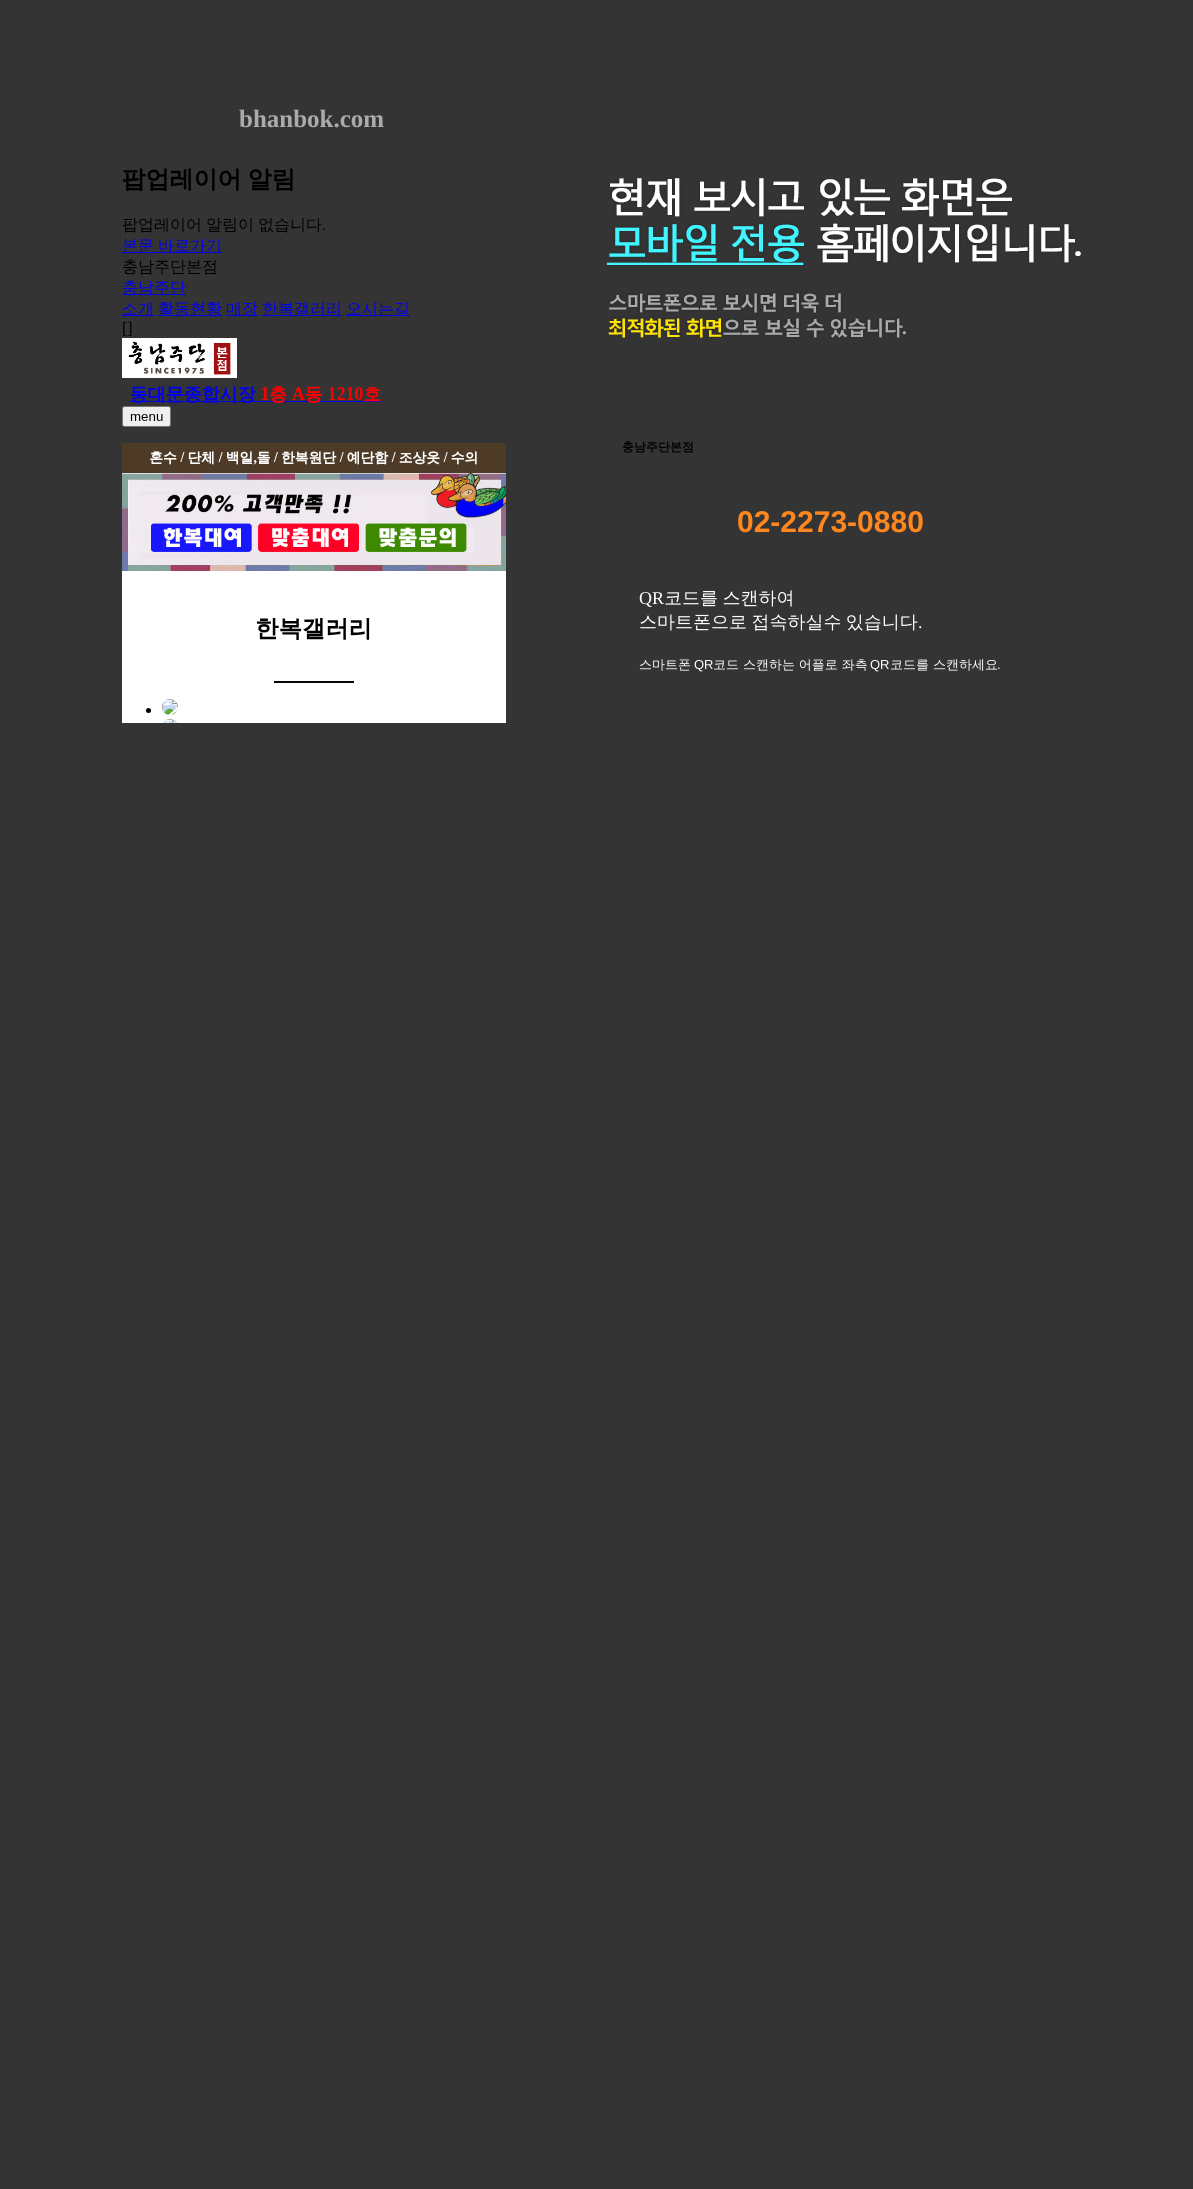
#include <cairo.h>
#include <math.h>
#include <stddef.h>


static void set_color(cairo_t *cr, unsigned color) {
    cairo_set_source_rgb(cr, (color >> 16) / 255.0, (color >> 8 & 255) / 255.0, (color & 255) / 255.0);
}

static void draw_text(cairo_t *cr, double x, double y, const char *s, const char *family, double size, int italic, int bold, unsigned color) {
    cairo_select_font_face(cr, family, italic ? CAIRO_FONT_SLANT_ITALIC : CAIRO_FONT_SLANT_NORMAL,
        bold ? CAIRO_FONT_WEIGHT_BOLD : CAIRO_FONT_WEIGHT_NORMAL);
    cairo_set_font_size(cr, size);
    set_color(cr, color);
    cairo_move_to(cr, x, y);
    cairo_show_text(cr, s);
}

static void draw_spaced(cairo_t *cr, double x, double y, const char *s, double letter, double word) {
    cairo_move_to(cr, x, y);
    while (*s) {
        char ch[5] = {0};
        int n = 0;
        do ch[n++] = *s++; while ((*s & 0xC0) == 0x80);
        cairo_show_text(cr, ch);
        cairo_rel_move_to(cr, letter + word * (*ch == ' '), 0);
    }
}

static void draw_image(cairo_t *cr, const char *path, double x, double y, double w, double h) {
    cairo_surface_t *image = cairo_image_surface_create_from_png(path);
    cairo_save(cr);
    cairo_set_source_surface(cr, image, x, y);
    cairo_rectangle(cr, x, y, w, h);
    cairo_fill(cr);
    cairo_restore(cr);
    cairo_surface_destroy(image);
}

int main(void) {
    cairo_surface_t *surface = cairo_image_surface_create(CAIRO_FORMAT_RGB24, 1193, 2189);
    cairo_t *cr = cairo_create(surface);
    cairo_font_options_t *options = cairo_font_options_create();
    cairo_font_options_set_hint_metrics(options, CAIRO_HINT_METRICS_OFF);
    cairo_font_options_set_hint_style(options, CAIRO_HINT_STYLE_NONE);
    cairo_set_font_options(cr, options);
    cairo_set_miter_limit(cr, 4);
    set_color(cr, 0x343434);
    cairo_paint(cr);
    draw_text(cr, 239, 127, "bhanbok.com", "Liberation Serif", 25, 0, 1, 0xABABAB);
    draw_image(cr, "assets/img1.png", 122, 168, 384, 555);
    draw_image(cr, "assets/img2.png", 607, 178, 474, 160);
    draw_text(cr, 622, 451, "충남주단본점", "WenQuanYi Zen Hei", 12, 0, 1, 0x000000);
    draw_text(cr, 737, 532, "02-2273-0880", "Liberation Sans", 30, 0, 1, 0xFF871D);
    draw_text(cr, 639, 604, "QR", "Liberation Serif", 18, 0, 0, 0xFFFFFF);
    cairo_select_font_face(cr, "WenQuanYi Zen Hei Medium", CAIRO_FONT_SLANT_NORMAL, CAIRO_FONT_WEIGHT_NORMAL);
    draw_spaced(cr, 664, 604, "코드를 스캔하여", 0, -1);
    draw_spaced(cr, 639, 628, "스마트폰으로 접속하실수 있습니다", 0, -1);
    draw_text(cr, 918, 628, ".", "Liberation Serif", 18, 0, 0, 0xFFFFFF);
    draw_text(cr, 639, 669, "스마트폰", "WenQuanYi Zen Hei Medium", 13, 0, 0, 0xFFFFFF);
    draw_text(cr, 694, 669, "QR", "Liberation Sans", 13, 0, 0, 0xFFFFFF);
    draw_text(cr, 713, 669, "코드 스캔하는 어플로 좌측", "WenQuanYi Zen Hei Medium", 13, 0, 0, 0xFFFFFF);
    draw_text(cr, 870, 669, "QR", "Liberation Sans", 13, 0, 0, 0xFFFFFF);
    draw_text(cr, 890, 669, "코드를 스캔하세요", "WenQuanYi Zen Hei Medium", 13, 0, 0, 0xFFFFFF);
    draw_text(cr, 997, 669, ".", "Liberation Sans", 13, 0, 0, 0xFFFFFF);
    cairo_surface_write_to_png(surface, "output.png");
    cairo_font_options_destroy(options);
    cairo_destroy(cr);
    cairo_surface_destroy(surface);
    return 0;
}
